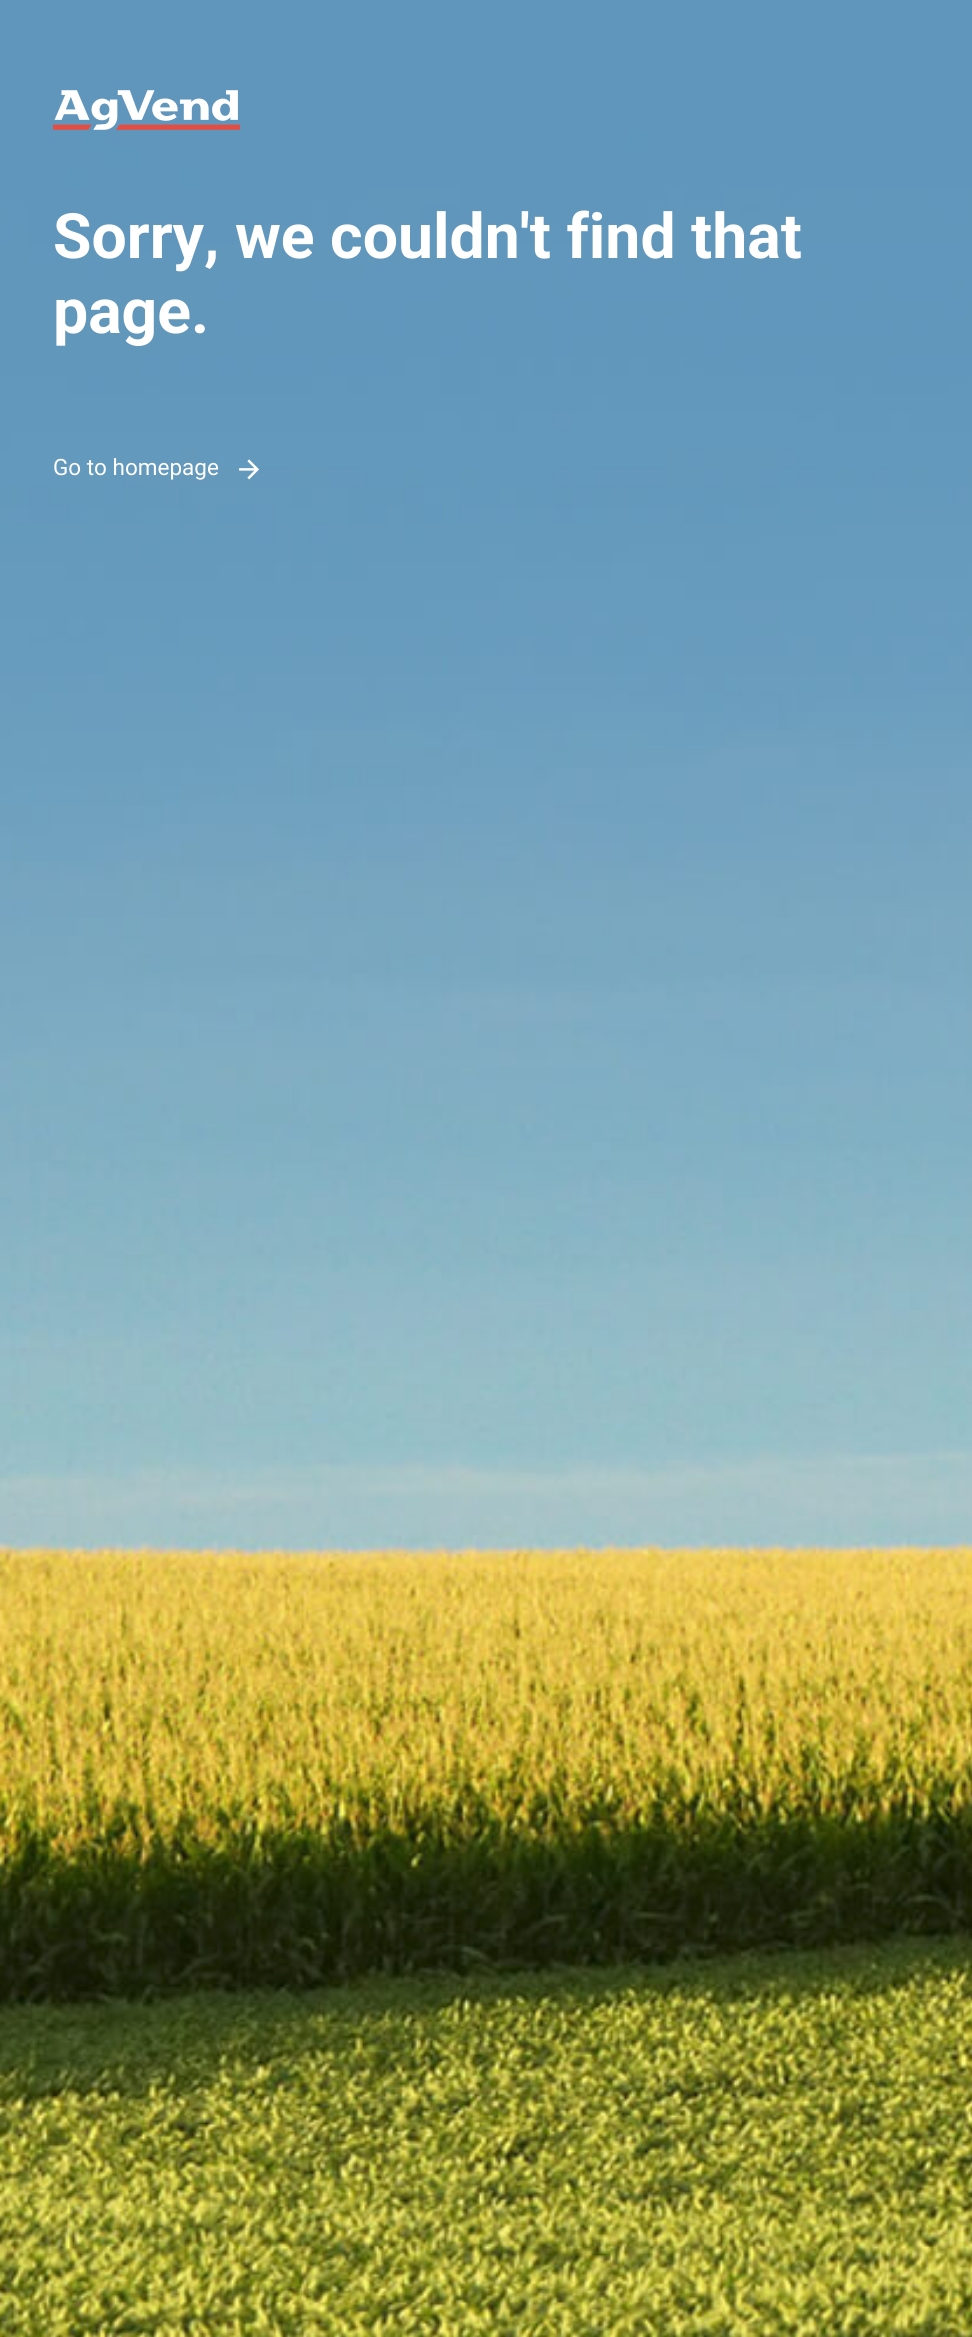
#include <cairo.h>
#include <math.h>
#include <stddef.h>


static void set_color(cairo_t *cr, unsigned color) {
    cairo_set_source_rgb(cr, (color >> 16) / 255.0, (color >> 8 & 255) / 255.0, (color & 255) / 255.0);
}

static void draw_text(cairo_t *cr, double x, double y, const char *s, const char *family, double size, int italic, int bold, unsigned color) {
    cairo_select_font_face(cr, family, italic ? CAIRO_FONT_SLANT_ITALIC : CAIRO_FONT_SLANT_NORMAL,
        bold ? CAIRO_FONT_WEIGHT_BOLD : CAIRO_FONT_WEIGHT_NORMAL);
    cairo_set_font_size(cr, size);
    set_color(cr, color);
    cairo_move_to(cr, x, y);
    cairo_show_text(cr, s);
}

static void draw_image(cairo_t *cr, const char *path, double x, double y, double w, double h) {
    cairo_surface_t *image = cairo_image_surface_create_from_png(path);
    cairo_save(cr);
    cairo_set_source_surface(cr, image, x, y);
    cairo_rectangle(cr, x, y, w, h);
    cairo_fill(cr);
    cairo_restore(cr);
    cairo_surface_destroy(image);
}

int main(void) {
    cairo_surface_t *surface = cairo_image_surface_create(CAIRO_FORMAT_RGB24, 972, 2337);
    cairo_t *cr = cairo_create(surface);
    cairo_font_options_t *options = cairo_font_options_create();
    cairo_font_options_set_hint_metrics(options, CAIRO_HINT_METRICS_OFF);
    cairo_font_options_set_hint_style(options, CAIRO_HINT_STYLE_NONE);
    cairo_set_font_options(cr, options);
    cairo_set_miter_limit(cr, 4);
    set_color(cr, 0xFFFFFF);
    cairo_paint(cr);
    draw_image(cr, "assets/img1.png", 0, 0, 972, 2337);
    draw_image(cr, "assets/img2.png", 53, 90, 187, 40);
    draw_text(cr, 53, 258, "Sorry, we couldn't find that", "Roboto", 62.5, 0, 1, 0xFFFFFF);
    draw_text(cr, 53, 333, "page.", "Roboto", 62.5, 0, 1, 0xFFFFFF);
    draw_text(cr, 53, 475, "Go to homepage", "Roboto", 22.5, 0, 0, 0xFFFFFF);
    draw_image(cr, "assets/img3.png", 239, 459, 20, 21);
    cairo_surface_write_to_png(surface, "output.png");
    cairo_font_options_destroy(options);
    cairo_destroy(cr);
    cairo_surface_destroy(surface);
    return 0;
}
